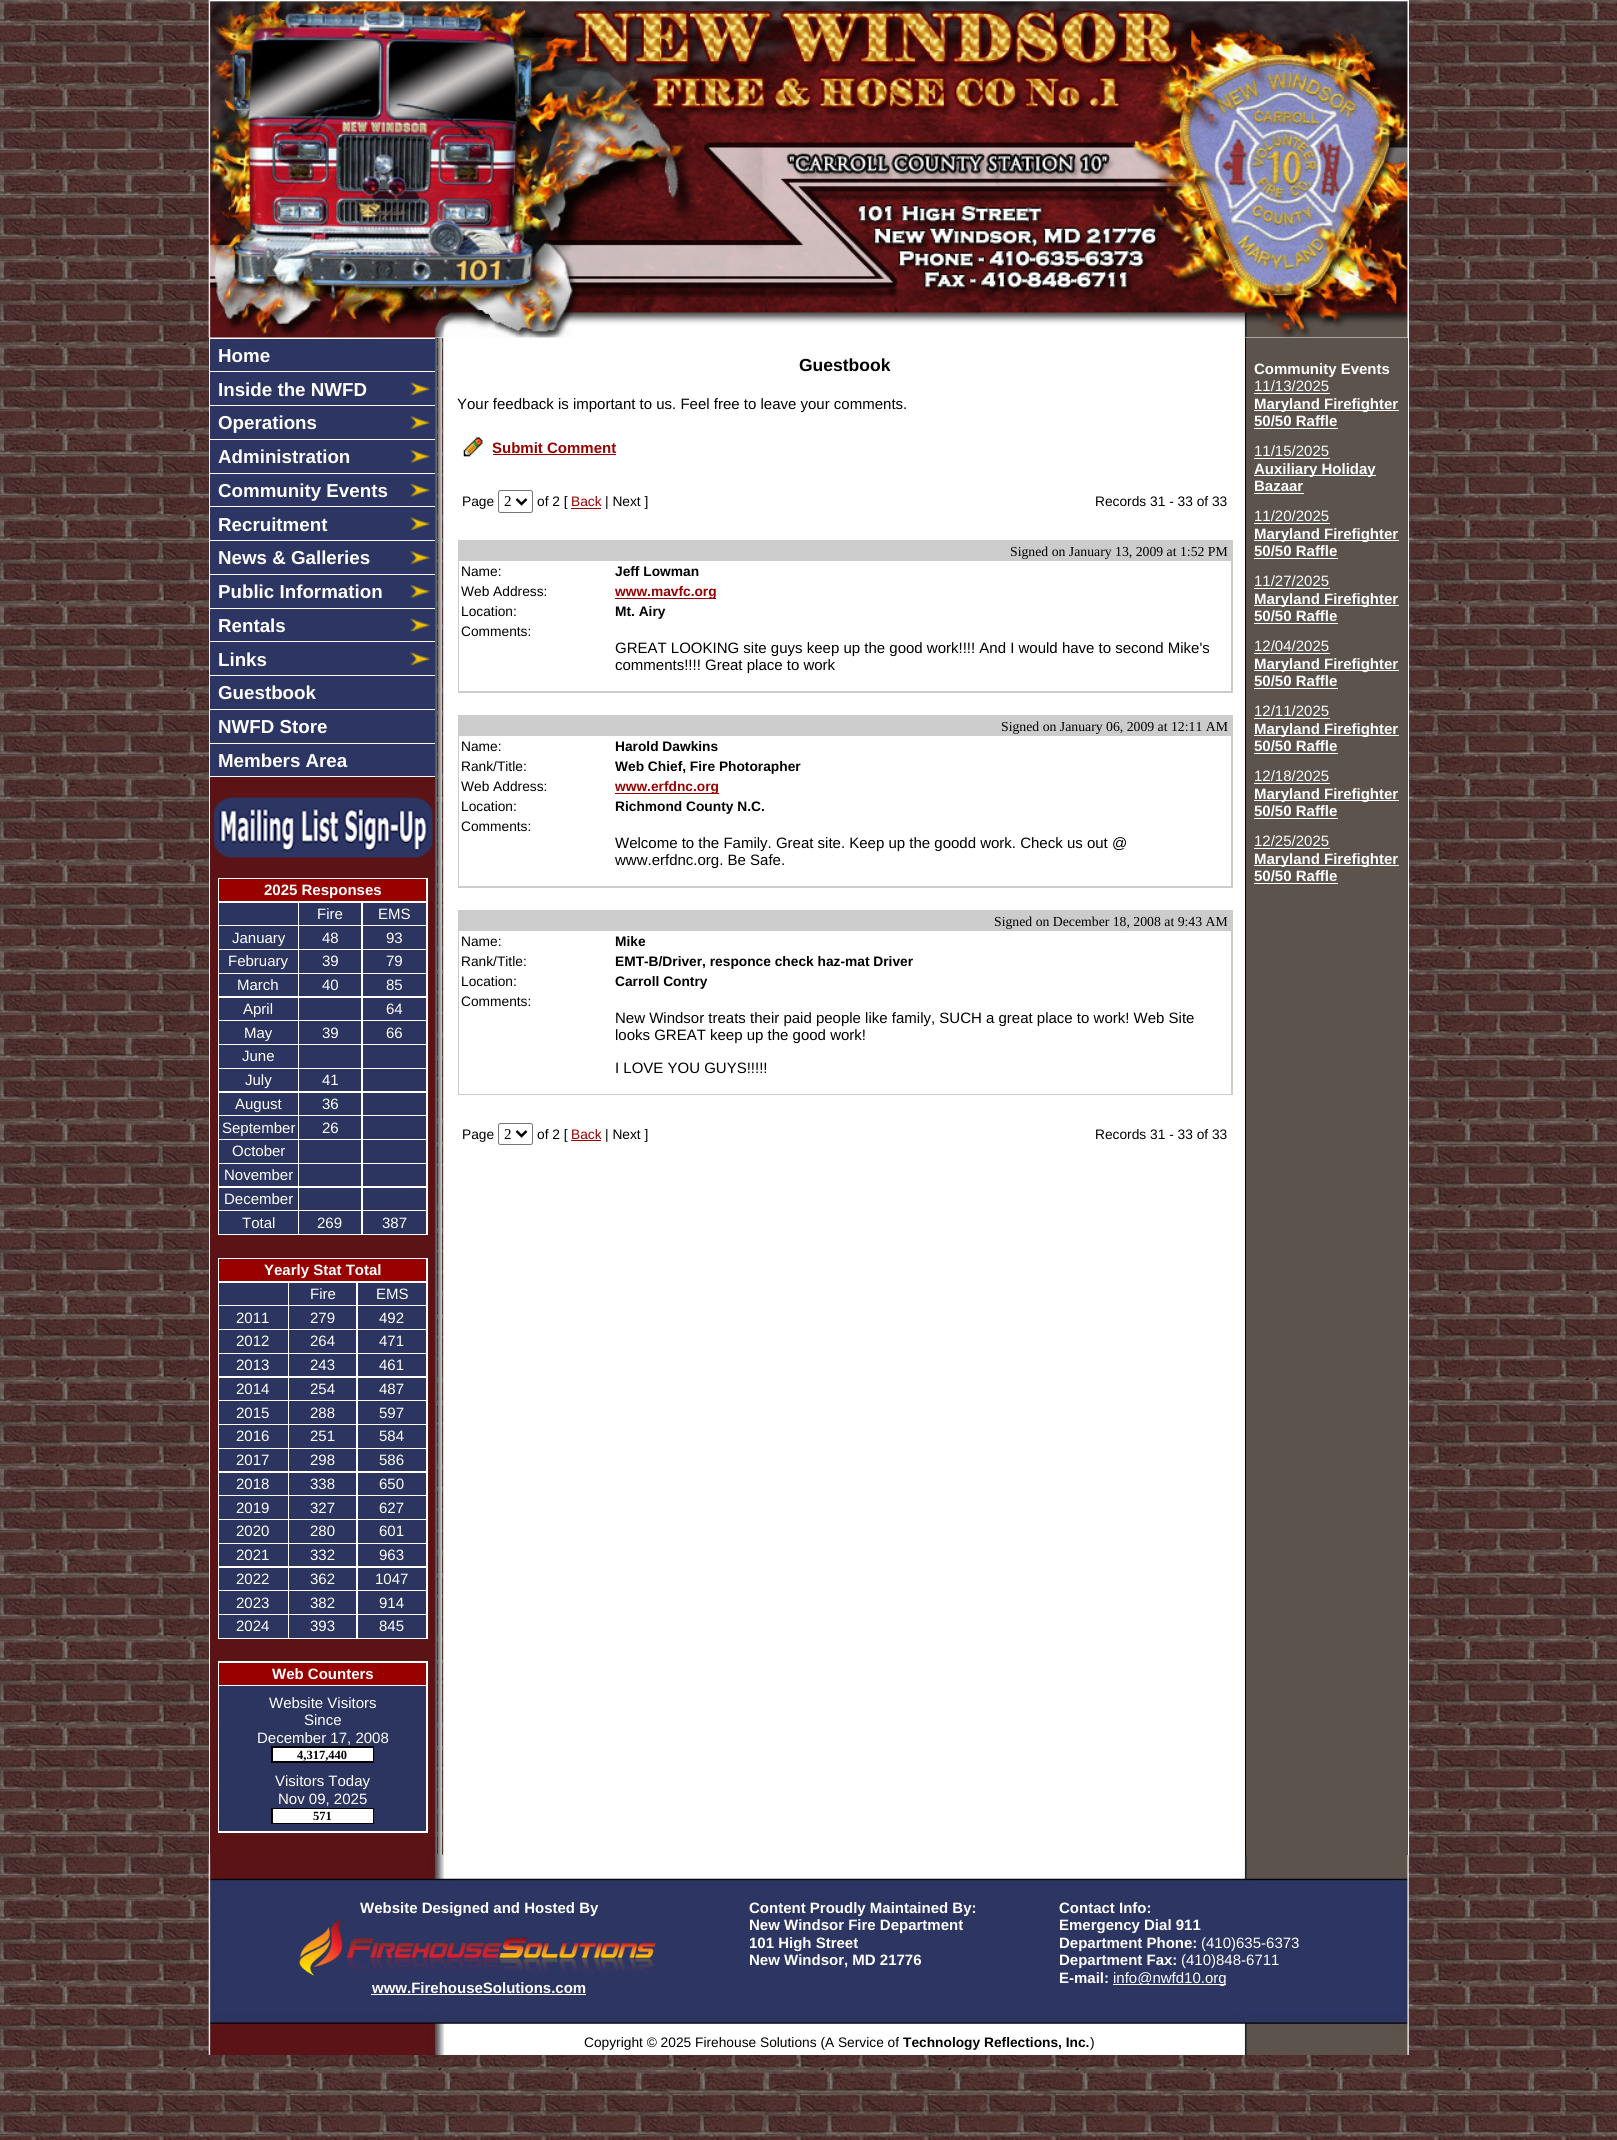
#include <cairo.h>
#include <math.h>
#include <stddef.h>


static void set_color(cairo_t *cr, unsigned color) {
    cairo_set_source_rgb(cr, (color >> 16) / 255.0, (color >> 8 & 255) / 255.0, (color & 255) / 255.0);
}

static void draw_text(cairo_t *cr, double x, double y, const char *s, const char *family, double size, int italic, int bold, unsigned color) {
    cairo_select_font_face(cr, family, italic ? CAIRO_FONT_SLANT_ITALIC : CAIRO_FONT_SLANT_NORMAL,
        bold ? CAIRO_FONT_WEIGHT_BOLD : CAIRO_FONT_WEIGHT_NORMAL);
    cairo_set_font_size(cr, size);
    set_color(cr, color);
    cairo_move_to(cr, x, y);
    cairo_show_text(cr, s);
}

static void fill_rect(cairo_t *cr, double x, double y, double w, double h, unsigned color) {
    set_color(cr, color);
    cairo_rectangle(cr, x, y, w, h);
    cairo_fill(cr);
}

static void rounded_rect(cairo_t *cr, double x, double y, double w, double h, double r) {
    cairo_new_sub_path(cr);
    cairo_arc(cr, x + w - r, y + h - r, r, 0, M_PI / 2);
    cairo_arc(cr, x + r, y + h - r, r, M_PI / 2, M_PI);
    cairo_arc(cr, x + r, y + r, r, M_PI, 1.5 * M_PI);
    cairo_arc(cr, x + w - r, y + r, r, 1.5 * M_PI, 2 * M_PI);
    cairo_close_path(cr);
}

static void draw_image(cairo_t *cr, const char *path, double x, double y, double w, double h) {
    cairo_surface_t *image = cairo_image_surface_create_from_png(path);
    cairo_save(cr);
    cairo_set_source_surface(cr, image, x, y);
    cairo_rectangle(cr, x, y, w, h);
    cairo_fill(cr);
    cairo_restore(cr);
    cairo_surface_destroy(image);
}

int main(void) {
    cairo_surface_t *surface = cairo_image_surface_create(CAIRO_FORMAT_RGB24, 1617, 2140);
    cairo_t *cr = cairo_create(surface);
    cairo_font_options_t *options = cairo_font_options_create();
    cairo_font_options_set_hint_metrics(options, CAIRO_HINT_METRICS_OFF);
    cairo_font_options_set_hint_style(options, CAIRO_HINT_STYLE_NONE);
    cairo_set_font_options(cr, options);
    cairo_set_miter_limit(cr, 4);
    set_color(cr, 0xFFFFFF);
    cairo_paint(cr);
    draw_image(cr, "assets/img1.png", 0, 0, 1617, 2140);
    fill_rect(cr, 209, 0, 1200, 338, 0xFFFFFF);
    draw_image(cr, "assets/img2.png", 208, 0, 1201, 338);
    fill_rect(cr, 209, 338, 1, 1517, 0xFFFFFF);
    fill_rect(cr, 210, 777, 225, 1078, 0x5B1316);
    fill_rect(cr, 210, 338, 225, 1, 0xFFFFFF);
    fill_rect(cr, 210, 339, 225, 437, 0x2D3563);
    draw_text(cr, 218, 362, "Home", "Liberation Sans", 18.75, 0, 1, 0xFFFFFF);
    fill_rect(cr, 210, 371, 225, 1, 0xFFFFFF);
    draw_text(cr, 218, 396, "Inside the NWFD", "Liberation Sans", 18.75, 0, 1, 0xFFFFFF);
    draw_image(cr, "assets/img3.png", 410, 382, 20, 14);
    fill_rect(cr, 210, 405, 225, 1, 0xFFFFFF);
    draw_text(cr, 218, 429, "Operations", "Liberation Sans", 18.75, 0, 1, 0xFFFFFF);
    draw_image(cr, "assets/img4.png", 410, 416, 20, 13);
    fill_rect(cr, 210, 439, 225, 1, 0xFFFFFF);
    draw_text(cr, 218, 463, "Administration", "Liberation Sans", 18.75, 0, 1, 0xFFFFFF);
    draw_image(cr, "assets/img5.png", 410, 450, 20, 13);
    fill_rect(cr, 210, 473, 225, 1, 0xFFFFFF);
    draw_text(cr, 218, 497, "Community Events", "Liberation Sans", 18.75, 0, 1, 0xFFFFFF);
    draw_image(cr, "assets/img6.png", 410, 483, 20, 14);
    fill_rect(cr, 210, 506, 225, 1, 0xFFFFFF);
    draw_text(cr, 218, 531, "Recruitment", "Liberation Sans", 18.75, 0, 1, 0xFFFFFF);
    draw_image(cr, "assets/img3.png", 410, 517, 20, 14);
    fill_rect(cr, 210, 540, 225, 1, 0xFFFFFF);
    draw_text(cr, 218, 564, "News & Galleries", "Liberation Sans", 18.75, 0, 1, 0xFFFFFF);
    draw_image(cr, "assets/img4.png", 410, 551, 20, 13);
    fill_rect(cr, 210, 574, 225, 1, 0xFFFFFF);
    draw_text(cr, 218, 598, "Public Information", "Liberation Sans", 18.75, 0, 1, 0xFFFFFF);
    draw_image(cr, "assets/img7.png", 410, 585, 20, 13);
    fill_rect(cr, 210, 608, 225, 1, 0xFFFFFF);
    draw_text(cr, 218, 632, "Rentals", "Liberation Sans", 18.75, 0, 1, 0xFFFFFF);
    draw_image(cr, "assets/img6.png", 410, 618, 20, 14);
    fill_rect(cr, 210, 641, 225, 1, 0xFFFFFF);
    draw_text(cr, 218, 666, "Links", "Liberation Sans", 18.75, 0, 1, 0xFFFFFF);
    draw_image(cr, "assets/img3.png", 410, 652, 20, 14);
    fill_rect(cr, 210, 675, 225, 1, 0xFFFFFF);
    draw_text(cr, 218, 699, "Guestbook", "Liberation Sans", 18.75, 0, 1, 0xFFFFFF);
    fill_rect(cr, 210, 709, 225, 1, 0xFFFFFF);
    draw_text(cr, 218, 733, "NWFD Store", "Liberation Sans", 18.75, 0, 1, 0xFFFFFF);
    fill_rect(cr, 210, 743, 225, 1, 0xFFFFFF);
    draw_text(cr, 218, 767, "Members Area", "Liberation Sans", 18.75, 0, 1, 0xFFFFFF);
    fill_rect(cr, 210, 776, 225, 1, 0xFFFFFF);
    draw_image(cr, "assets/img8.png", 213, 797, 220, 61);
    fill_rect(cr, 218, 878, 210, 357, 0xFFFFFF);
    fill_rect(cr, 219, 879, 207, 22, 0x990000);
    draw_text(cr, 264, 895, "2025 Responses", "Liberation Sans", 15, 0, 1, 0xFFFFFF);
    fill_rect(cr, 219, 903, 79, 22, 0x2C3560);
    fill_rect(cr, 299, 903, 62, 22, 0x2C3560);
    draw_text(cr, 317, 919, "Fire", "Liberation Sans", 15, 0, 0, 0xFFFFFF);
    fill_rect(cr, 363, 903, 63, 22, 0x2C3560);
    draw_text(cr, 378, 919, "EMS", "Liberation Sans", 15, 0, 0, 0xFFFFFF);
    fill_rect(cr, 219, 926, 79, 23, 0x2C3560);
    draw_text(cr, 232, 943, "January", "Liberation Sans", 15, 0, 0, 0xFFFFFF);
    fill_rect(cr, 299, 926, 62, 23, 0x2C3560);
    draw_text(cr, 322, 943, "48", "Liberation Sans", 15, 0, 0, 0xFFFFFF);
    fill_rect(cr, 363, 926, 63, 23, 0x2C3560);
    draw_text(cr, 386, 943, "93", "Liberation Sans", 15, 0, 0, 0xFFFFFF);
    fill_rect(cr, 219, 950, 79, 23, 0x2C3560);
    draw_text(cr, 228, 966, "February", "Liberation Sans", 15, 0, 0, 0xFFFFFF);
    fill_rect(cr, 299, 950, 62, 23, 0x2C3560);
    draw_text(cr, 322, 966, "39", "Liberation Sans", 15, 0, 0, 0xFFFFFF);
    fill_rect(cr, 363, 950, 63, 23, 0x2C3560);
    draw_text(cr, 386, 966, "79", "Liberation Sans", 15, 0, 0, 0xFFFFFF);
    fill_rect(cr, 219, 974, 79, 22, 0x2C3560);
    draw_text(cr, 237, 990, "March", "Liberation Sans", 15, 0, 0, 0xFFFFFF);
    fill_rect(cr, 299, 974, 62, 22, 0x2C3560);
    draw_text(cr, 322, 990, "40", "Liberation Sans", 15, 0, 0, 0xFFFFFF);
    fill_rect(cr, 363, 974, 63, 22, 0x2C3560);
    draw_text(cr, 386, 990, "85", "Liberation Sans", 15, 0, 0, 0xFFFFFF);
    fill_rect(cr, 219, 998, 79, 22, 0x2C3560);
    draw_text(cr, 243, 1014, "April", "Liberation Sans", 15, 0, 0, 0xFFFFFF);
    fill_rect(cr, 299, 998, 62, 22, 0x2C3560);
    fill_rect(cr, 363, 998, 63, 22, 0x2C3560);
    draw_text(cr, 386, 1014, "64", "Liberation Sans", 15, 0, 0, 0xFFFFFF);
    fill_rect(cr, 219, 1021, 79, 23, 0x2C3560);
    draw_text(cr, 244, 1038, "May", "Liberation Sans", 15, 0, 0, 0xFFFFFF);
    fill_rect(cr, 299, 1021, 62, 23, 0x2C3560);
    draw_text(cr, 322, 1038, "39", "Liberation Sans", 15, 0, 0, 0xFFFFFF);
    fill_rect(cr, 363, 1021, 63, 23, 0x2C3560);
    draw_text(cr, 386, 1038, "66", "Liberation Sans", 15, 0, 0, 0xFFFFFF);
    fill_rect(cr, 219, 1045, 79, 23, 0x2C3560);
    draw_text(cr, 242, 1061, "June", "Liberation Sans", 15, 0, 0, 0xFFFFFF);
    fill_rect(cr, 299, 1045, 62, 23, 0x2C3560);
    fill_rect(cr, 363, 1045, 63, 23, 0x2C3560);
    fill_rect(cr, 219, 1069, 79, 22, 0x2C3560);
    draw_text(cr, 245, 1085, "July", "Liberation Sans", 15, 0, 0, 0xFFFFFF);
    fill_rect(cr, 299, 1069, 62, 22, 0x2C3560);
    draw_text(cr, 322, 1085, "41", "Liberation Sans", 15, 0, 0, 0xFFFFFF);
    fill_rect(cr, 363, 1069, 63, 22, 0x2C3560);
    fill_rect(cr, 219, 1093, 79, 22, 0x2C3560);
    draw_text(cr, 235, 1109, "August", "Liberation Sans", 15, 0, 0, 0xFFFFFF);
    fill_rect(cr, 299, 1093, 62, 22, 0x2C3560);
    draw_text(cr, 322, 1109, "36", "Liberation Sans", 15, 0, 0, 0xFFFFFF);
    fill_rect(cr, 363, 1093, 63, 22, 0x2C3560);
    fill_rect(cr, 219, 1116, 79, 23, 0x2C3560);
    draw_text(cr, 222, 1133, "September", "Liberation Sans", 15, 0, 0, 0xFFFFFF);
    fill_rect(cr, 299, 1116, 62, 23, 0x2C3560);
    draw_text(cr, 322, 1133, "26", "Liberation Sans", 15, 0, 0, 0xFFFFFF);
    fill_rect(cr, 363, 1116, 63, 23, 0x2C3560);
    fill_rect(cr, 219, 1140, 79, 23, 0x2C3560);
    draw_text(cr, 232, 1156, "October", "Liberation Sans", 15, 0, 0, 0xFFFFFF);
    fill_rect(cr, 299, 1140, 62, 23, 0x2C3560);
    fill_rect(cr, 363, 1140, 63, 23, 0x2C3560);
    fill_rect(cr, 219, 1164, 79, 22, 0x2C3560);
    draw_text(cr, 224, 1180, "November", "Liberation Sans", 15, 0, 0, 0xFFFFFF);
    fill_rect(cr, 299, 1164, 62, 22, 0x2C3560);
    fill_rect(cr, 363, 1164, 63, 22, 0x2C3560);
    fill_rect(cr, 219, 1188, 79, 22, 0x2C3560);
    draw_text(cr, 224, 1204, "December", "Liberation Sans", 15, 0, 0, 0xFFFFFF);
    fill_rect(cr, 299, 1188, 62, 22, 0x2C3560);
    fill_rect(cr, 363, 1188, 63, 22, 0x2C3560);
    fill_rect(cr, 219, 1211, 79, 23, 0x2C3560);
    draw_text(cr, 242, 1228, "Total", "Liberation Sans", 15, 0, 0, 0xFFFFFF);
    fill_rect(cr, 299, 1211, 62, 23, 0x2C3560);
    draw_text(cr, 317, 1228, "269", "Liberation Sans", 15, 0, 0, 0xFFFFFF);
    fill_rect(cr, 363, 1211, 63, 23, 0x2C3560);
    draw_text(cr, 382, 1228, "387", "Liberation Sans", 15, 0, 0, 0xFFFFFF);
    fill_rect(cr, 218, 1258, 210, 381, 0xFFFFFF);
    fill_rect(cr, 219, 1259, 207, 22, 0x990000);
    draw_text(cr, 264, 1275, "Yearly Stat Total", "Liberation Sans", 15, 0, 1, 0xFFFFFF);
    fill_rect(cr, 219, 1283, 69, 22, 0x2C3560);
    fill_rect(cr, 289, 1283, 67, 22, 0x2C3560);
    draw_text(cr, 310, 1299, "Fire", "Liberation Sans", 15, 0, 0, 0xFFFFFF);
    fill_rect(cr, 358, 1283, 68, 22, 0x2C3560);
    draw_text(cr, 376, 1299, "EMS", "Liberation Sans", 15, 0, 0, 0xFFFFFF);
    fill_rect(cr, 219, 1306, 69, 23, 0x2C3560);
    draw_text(cr, 236, 1323, "2011", "Liberation Sans", 15, 0, 0, 0xFFFFFF);
    fill_rect(cr, 289, 1306, 67, 23, 0x2C3560);
    draw_text(cr, 310, 1323, "279", "Liberation Sans", 15, 0, 0, 0xFFFFFF);
    fill_rect(cr, 358, 1306, 68, 23, 0x2C3560);
    draw_text(cr, 379, 1323, "492", "Liberation Sans", 15, 0, 0, 0xFFFFFF);
    fill_rect(cr, 219, 1330, 69, 23, 0x2C3560);
    draw_text(cr, 236, 1346, "2012", "Liberation Sans", 15, 0, 0, 0xFFFFFF);
    fill_rect(cr, 289, 1330, 67, 23, 0x2C3560);
    draw_text(cr, 310, 1346, "264", "Liberation Sans", 15, 0, 0, 0xFFFFFF);
    fill_rect(cr, 358, 1330, 68, 23, 0x2C3560);
    draw_text(cr, 379, 1346, "471", "Liberation Sans", 15, 0, 0, 0xFFFFFF);
    fill_rect(cr, 219, 1354, 69, 22, 0x2C3560);
    draw_text(cr, 236, 1370, "2013", "Liberation Sans", 15, 0, 0, 0xFFFFFF);
    fill_rect(cr, 289, 1354, 67, 22, 0x2C3560);
    draw_text(cr, 310, 1370, "243", "Liberation Sans", 15, 0, 0, 0xFFFFFF);
    fill_rect(cr, 358, 1354, 68, 22, 0x2C3560);
    draw_text(cr, 379, 1370, "461", "Liberation Sans", 15, 0, 0, 0xFFFFFF);
    fill_rect(cr, 219, 1378, 69, 22, 0x2C3560);
    draw_text(cr, 236, 1394, "2014", "Liberation Sans", 15, 0, 0, 0xFFFFFF);
    fill_rect(cr, 289, 1378, 67, 22, 0x2C3560);
    draw_text(cr, 310, 1394, "254", "Liberation Sans", 15, 0, 0, 0xFFFFFF);
    fill_rect(cr, 358, 1378, 68, 22, 0x2C3560);
    draw_text(cr, 379, 1394, "487", "Liberation Sans", 15, 0, 0, 0xFFFFFF);
    fill_rect(cr, 219, 1401, 69, 23, 0x2C3560);
    draw_text(cr, 236, 1418, "2015", "Liberation Sans", 15, 0, 0, 0xFFFFFF);
    fill_rect(cr, 289, 1401, 67, 23, 0x2C3560);
    draw_text(cr, 310, 1418, "288", "Liberation Sans", 15, 0, 0, 0xFFFFFF);
    fill_rect(cr, 358, 1401, 68, 23, 0x2C3560);
    draw_text(cr, 379, 1418, "597", "Liberation Sans", 15, 0, 0, 0xFFFFFF);
    fill_rect(cr, 219, 1425, 69, 23, 0x2C3560);
    draw_text(cr, 236, 1441, "2016", "Liberation Sans", 15, 0, 0, 0xFFFFFF);
    fill_rect(cr, 289, 1425, 67, 23, 0x2C3560);
    draw_text(cr, 310, 1441, "251", "Liberation Sans", 15, 0, 0, 0xFFFFFF);
    fill_rect(cr, 358, 1425, 68, 23, 0x2C3560);
    draw_text(cr, 379, 1441, "584", "Liberation Sans", 15, 0, 0, 0xFFFFFF);
    fill_rect(cr, 219, 1449, 69, 22, 0x2C3560);
    draw_text(cr, 236, 1465, "2017", "Liberation Sans", 15, 0, 0, 0xFFFFFF);
    fill_rect(cr, 289, 1449, 67, 22, 0x2C3560);
    draw_text(cr, 310, 1465, "298", "Liberation Sans", 15, 0, 0, 0xFFFFFF);
    fill_rect(cr, 358, 1449, 68, 22, 0x2C3560);
    draw_text(cr, 379, 1465, "586", "Liberation Sans", 15, 0, 0, 0xFFFFFF);
    fill_rect(cr, 219, 1473, 69, 22, 0x2C3560);
    draw_text(cr, 236, 1489, "2018", "Liberation Sans", 15, 0, 0, 0xFFFFFF);
    fill_rect(cr, 289, 1473, 67, 22, 0x2C3560);
    draw_text(cr, 310, 1489, "338", "Liberation Sans", 15, 0, 0, 0xFFFFFF);
    fill_rect(cr, 358, 1473, 68, 22, 0x2C3560);
    draw_text(cr, 379, 1489, "650", "Liberation Sans", 15, 0, 0, 0xFFFFFF);
    fill_rect(cr, 219, 1496, 69, 23, 0x2C3560);
    draw_text(cr, 236, 1513, "2019", "Liberation Sans", 15, 0, 0, 0xFFFFFF);
    fill_rect(cr, 289, 1496, 67, 23, 0x2C3560);
    draw_text(cr, 310, 1513, "327", "Liberation Sans", 15, 0, 0, 0xFFFFFF);
    fill_rect(cr, 358, 1496, 68, 23, 0x2C3560);
    draw_text(cr, 379, 1513, "627", "Liberation Sans", 15, 0, 0, 0xFFFFFF);
    fill_rect(cr, 219, 1520, 69, 23, 0x2C3560);
    draw_text(cr, 236, 1536, "2020", "Liberation Sans", 15, 0, 0, 0xFFFFFF);
    fill_rect(cr, 289, 1520, 67, 23, 0x2C3560);
    draw_text(cr, 310, 1536, "280", "Liberation Sans", 15, 0, 0, 0xFFFFFF);
    fill_rect(cr, 358, 1520, 68, 23, 0x2C3560);
    draw_text(cr, 379, 1536, "601", "Liberation Sans", 15, 0, 0, 0xFFFFFF);
    fill_rect(cr, 219, 1544, 69, 22, 0x2C3560);
    draw_text(cr, 236, 1560, "2021", "Liberation Sans", 15, 0, 0, 0xFFFFFF);
    fill_rect(cr, 289, 1544, 67, 22, 0x2C3560);
    draw_text(cr, 310, 1560, "332", "Liberation Sans", 15, 0, 0, 0xFFFFFF);
    fill_rect(cr, 358, 1544, 68, 22, 0x2C3560);
    draw_text(cr, 379, 1560, "963", "Liberation Sans", 15, 0, 0, 0xFFFFFF);
    fill_rect(cr, 219, 1568, 69, 22, 0x2C3560);
    draw_text(cr, 236, 1584, "2022", "Liberation Sans", 15, 0, 0, 0xFFFFFF);
    fill_rect(cr, 289, 1568, 67, 22, 0x2C3560);
    draw_text(cr, 310, 1584, "362", "Liberation Sans", 15, 0, 0, 0xFFFFFF);
    fill_rect(cr, 358, 1568, 68, 22, 0x2C3560);
    draw_text(cr, 375, 1584, "1047", "Liberation Sans", 15, 0, 0, 0xFFFFFF);
    fill_rect(cr, 219, 1591, 69, 23, 0x2C3560);
    draw_text(cr, 236, 1608, "2023", "Liberation Sans", 15, 0, 0, 0xFFFFFF);
    fill_rect(cr, 289, 1591, 67, 23, 0x2C3560);
    draw_text(cr, 310, 1608, "382", "Liberation Sans", 15, 0, 0, 0xFFFFFF);
    fill_rect(cr, 358, 1591, 68, 23, 0x2C3560);
    draw_text(cr, 379, 1608, "914", "Liberation Sans", 15, 0, 0, 0xFFFFFF);
    fill_rect(cr, 219, 1615, 69, 23, 0x2C3560);
    draw_text(cr, 236, 1631, "2024", "Liberation Sans", 15, 0, 0, 0xFFFFFF);
    fill_rect(cr, 289, 1615, 67, 23, 0x2C3560);
    draw_text(cr, 310, 1631, "393", "Liberation Sans", 15, 0, 0, 0xFFFFFF);
    fill_rect(cr, 358, 1615, 68, 23, 0x2C3560);
    draw_text(cr, 379, 1631, "845", "Liberation Sans", 15, 0, 0, 0xFFFFFF);
    fill_rect(cr, 218, 1661, 210, 172, 0xFFFFFF);
    fill_rect(cr, 219, 1663, 207, 22, 0x990000);
    draw_text(cr, 272, 1679, "Web Counters", "Liberation Sans", 15, 0, 1, 0xFFFFFF);
    fill_rect(cr, 219, 1686, 207, 145, 0x2C3560);
    draw_text(cr, 269, 1708, "Website Visitors", "Liberation Sans", 15, 0, 0, 0xFFFFFF);
    draw_text(cr, 304, 1725, "Since", "Liberation Sans", 15, 0, 0, 0xFFFFFF);
    draw_text(cr, 257, 1743, "December 17, 2008", "Liberation Sans", 15, 0, 0, 0xFFFFFF);
    fill_rect(cr, 271, 1746, 103, 17, 0x000000);
    fill_rect(cr, 273, 1748, 100, 13, 0xFFFFFF);
    draw_text(cr, 297, 1759, "4,317,440", "Liberation Serif", 12.5, 0, 1, 0x000000);
    draw_text(cr, 275, 1786, "Visitors Today", "Liberation Sans", 15, 0, 0, 0xFFFFFF);
    draw_text(cr, 278, 1804, "Nov 09, 2025", "Liberation Sans", 15, 0, 0, 0xFFFFFF);
    fill_rect(cr, 271, 1808, 103, 16, 0x000000);
    fill_rect(cr, 273, 1809, 100, 14, 0xFFFFFF);
    draw_text(cr, 313, 1820, "571", "Liberation Serif", 12.5, 0, 1, 0x000000);
    fill_rect(cr, 435, 338, 1, 1517, 0x575757);
    fill_rect(cr, 436, 338, 1, 1517, 0x676767);
    fill_rect(cr, 438, 338, 1, 1517, 0x7A7A7A);
    fill_rect(cr, 439, 338, 1, 1517, 0x929292);
    fill_rect(cr, 440, 338, 1, 1517, 0xADADAD);
    fill_rect(cr, 441, 338, 1, 1517, 0xC5C5C5);
    fill_rect(cr, 443, 338, 1, 1517, 0xD8D8D8);
    fill_rect(cr, 444, 338, 801, 1517, 0xFFFFFF);
    draw_text(cr, 799, 371, "Guestbook", "Liberation Sans", 17.5, 0, 1, 0x000000);
    draw_text(cr, 457, 409, "Your feedback is important to us. Feel free to leave your comments.", "Liberation Sans", 15, 0, 0, 0x000000);
    draw_image(cr, "assets/img9.png", 463, 437, 20, 20);
    draw_text(cr, 492, 453, "Submit Comment", "Liberation Sans", 15, 0, 1, 0x990000);
    fill_rect(cr, 493, 454, 123, 1, 0x990000);
    draw_text(cr, 462, 506, "Page", "Liberation Sans", 13.75, 0, 0, 0x000000);
    rounded_rect(cr, 498.5, 490.5, 34, 22, 2);
    set_color(cr, 0x767676);
    cairo_set_line_width(cr, 1);
    cairo_stroke(cr);
    cairo_new_path(cr);
    cairo_move_to(cr, 516.5, 499);
    cairo_line_to(cr, 521.5, 504);
    cairo_line_to(cr, 526.5, 499);
    set_color(cr, 0x000000);
    cairo_set_line_width(cr, 2.5);
    cairo_stroke(cr);
    draw_text(cr, 504, 506, "2", "Liberation Serif", 15, 0, 0, 0x000000);
    draw_text(cr, 537, 506, "of 2 [", "Liberation Sans", 13.75, 0, 0, 0x000000);
    draw_text(cr, 571, 506, "Back", "Liberation Sans", 13.75, 0, 0, 0x990000);
    fill_rect(cr, 571, 508, 30, 1, 0x990000);
    draw_text(cr, 605, 506, "| Next ]", "Liberation Sans", 13.75, 0, 0, 0x000000);
    draw_text(cr, 1095, 506, "Records 31 - 33 of 33", "Liberation Sans", 13.75, 0, 0, 0x000000);
    fill_rect(cr, 458, 540, 775, 153, 0xCCCCCC);
    fill_rect(cr, 459, 561, 772, 130, 0xFFFFFF);
    draw_text(cr, 1010, 556, "Signed on January 13, 2009 at 1:52 PM", "Liberation Serif", 13.75, 0, 0, 0x000000);
    draw_text(cr, 461, 576, "Name:", "Liberation Sans", 13.75, 0, 0, 0x000000);
    draw_text(cr, 615, 576, "Jeff Lowman", "Liberation Sans", 13.75, 0, 1, 0x000000);
    draw_text(cr, 461, 596, "Web Address:", "Liberation Sans", 13.75, 0, 0, 0x000000);
    fill_rect(cr, 615, 598, 101, 1, 0x990000);
    draw_text(cr, 615, 596, "www.mavfc.org", "Liberation Sans", 13.75, 0, 1, 0x990000);
    draw_text(cr, 461, 616, "Location:", "Liberation Sans", 13.75, 0, 0, 0x000000);
    draw_text(cr, 615, 616, "Mt. Airy", "Liberation Sans", 13.75, 0, 1, 0x000000);
    draw_text(cr, 461, 636, "Comments:", "Liberation Sans", 13.75, 0, 0, 0x000000);
    draw_text(cr, 615, 653, "GREAT LOOKING site guys keep up the good work!!!! And I would have to second Mike's", "Liberation Sans", 15, 0, 0, 0x000000);
    draw_text(cr, 615, 670, "comments!!!! Great place to work", "Liberation Sans", 15, 0, 0, 0x000000);
    fill_rect(cr, 458, 715, 775, 173, 0xCCCCCC);
    fill_rect(cr, 459, 736, 772, 150, 0xFFFFFF);
    draw_text(cr, 1001, 731, "Signed on January 06, 2009 at 12:11 AM", "Liberation Serif", 13.75, 0, 0, 0x000000);
    draw_text(cr, 461, 751, "Name:", "Liberation Sans", 13.75, 0, 0, 0x000000);
    draw_text(cr, 615, 751, "Harold Dawkins", "Liberation Sans", 13.75, 0, 1, 0x000000);
    draw_text(cr, 461, 771, "Rank/Title:", "Liberation Sans", 13.75, 0, 0, 0x000000);
    draw_text(cr, 615, 771, "Web Chief, Fire Photorapher", "Liberation Sans", 13.75, 0, 1, 0x000000);
    draw_text(cr, 461, 791, "Web Address:", "Liberation Sans", 13.75, 0, 0, 0x000000);
    fill_rect(cr, 615, 793, 104, 1, 0x990000);
    draw_text(cr, 615, 791, "www.erfdnc.org", "Liberation Sans", 13.75, 0, 1, 0x990000);
    draw_text(cr, 461, 811, "Location:", "Liberation Sans", 13.75, 0, 0, 0x000000);
    draw_text(cr, 615, 811, "Richmond County N.C.", "Liberation Sans", 13.75, 0, 1, 0x000000);
    draw_text(cr, 461, 831, "Comments:", "Liberation Sans", 13.75, 0, 0, 0x000000);
    draw_text(cr, 615, 848, "Welcome to the Family. Great site. Keep up the goodd work. Check us out @", "Liberation Sans", 15, 0, 0, 0x000000);
    draw_text(cr, 615, 865, "www.erfdnc.org. Be Safe.", "Liberation Sans", 15, 0, 0, 0x000000);
    fill_rect(cr, 458, 910, 775, 185, 0xCCCCCC);
    fill_rect(cr, 459, 931, 772, 163, 0xFFFFFF);
    draw_text(cr, 994, 926, "Signed on December 18, 2008 at 9:43 AM", "Liberation Serif", 13.75, 0, 0, 0x000000);
    draw_text(cr, 461, 946, "Name:", "Liberation Sans", 13.75, 0, 0, 0x000000);
    draw_text(cr, 615, 946, "Mike", "Liberation Sans", 13.75, 0, 1, 0x000000);
    draw_text(cr, 461, 966, "Rank/Title:", "Liberation Sans", 13.75, 0, 0, 0x000000);
    draw_text(cr, 615, 966, "EMT-B/Driver, responce check haz-mat Driver", "Liberation Sans", 13.75, 0, 1, 0x000000);
    draw_text(cr, 461, 986, "Location:", "Liberation Sans", 13.75, 0, 0, 0x000000);
    draw_text(cr, 615, 986, "Carroll Contry", "Liberation Sans", 13.75, 0, 1, 0x000000);
    draw_text(cr, 461, 1006, "Comments:", "Liberation Sans", 13.75, 0, 0, 0x000000);
    draw_text(cr, 615, 1023, "New Windsor treats their paid people like family, SUCH a great place to work! Web Site", "Liberation Sans", 15, 0, 0, 0x000000);
    draw_text(cr, 615, 1040, "looks GREAT keep up the good work!", "Liberation Sans", 15, 0, 0, 0x000000);
    draw_text(cr, 615, 1073, "I LOVE YOU GUYS!!!!!", "Liberation Sans", 15, 0, 0, 0x000000);
    draw_text(cr, 462, 1139, "Page", "Liberation Sans", 13.75, 0, 0, 0x000000);
    rounded_rect(cr, 498.5, 1123.5, 34, 21, 2);
    set_color(cr, 0x767676);
    cairo_set_line_width(cr, 1);
    cairo_stroke(cr);
    cairo_new_path(cr);
    cairo_move_to(cr, 516.5, 1131);
    cairo_line_to(cr, 521.5, 1136);
    cairo_line_to(cr, 526.5, 1131);
    set_color(cr, 0x000000);
    cairo_set_line_width(cr, 2.5);
    cairo_stroke(cr);
    draw_text(cr, 504, 1139, "2", "Liberation Serif", 15, 0, 0, 0x000000);
    draw_text(cr, 537, 1139, "of 2 [", "Liberation Sans", 13.75, 0, 0, 0x000000);
    draw_text(cr, 571, 1139, "Back", "Liberation Sans", 13.75, 0, 0, 0x990000);
    fill_rect(cr, 571, 1140, 30, 1, 0x990000);
    draw_text(cr, 605, 1139, "| Next ]", "Liberation Sans", 13.75, 0, 0, 0x000000);
    draw_text(cr, 1095, 1139, "Records 31 - 33 of 33", "Liberation Sans", 13.75, 0, 0, 0x000000);
    fill_rect(cr, 1245, 338, 1, 1517, 0x000000);
    fill_rect(cr, 1246, 338, 162, 1517, 0x5C534C);
    draw_text(cr, 1254, 374, "Community Events", "Liberation Sans", 15, 0, 1, 0xFFFFFF);
    draw_text(cr, 1254, 391, "11/13/2025", "Liberation Sans", 15, 0, 0, 0xFFFFFF);
    fill_rect(cr, 1254, 393, 76, 1, 0xFFFFFF);
    fill_rect(cr, 1254, 410, 145, 1, 0xFFFFFF);
    draw_text(cr, 1254, 409, "Maryland Firefighter", "Liberation Sans", 15, 0, 1, 0xFFFFFF);
    draw_text(cr, 1254, 426, "50/50 Raffle", "Liberation Sans", 15, 0, 1, 0xFFFFFF);
    fill_rect(cr, 1254, 428, 84, 1, 0xFFFFFF);
    draw_text(cr, 1254, 456, "11/15/2025", "Liberation Sans", 15, 0, 0, 0xFFFFFF);
    fill_rect(cr, 1254, 458, 76, 1, 0xFFFFFF);
    fill_rect(cr, 1254, 475, 122, 1, 0xFFFFFF);
    draw_text(cr, 1254, 474, "Auxiliary Holiday", "Liberation Sans", 15, 0, 1, 0xFFFFFF);
    draw_text(cr, 1254, 491, "Bazaar", "Liberation Sans", 15, 0, 1, 0xFFFFFF);
    fill_rect(cr, 1254, 493, 50, 1, 0xFFFFFF);
    draw_text(cr, 1254, 521, "11/20/2025", "Liberation Sans", 15, 0, 0, 0xFFFFFF);
    fill_rect(cr, 1254, 523, 76, 1, 0xFFFFFF);
    fill_rect(cr, 1254, 540, 145, 1, 0xFFFFFF);
    draw_text(cr, 1254, 539, "Maryland Firefighter", "Liberation Sans", 15, 0, 1, 0xFFFFFF);
    draw_text(cr, 1254, 556, "50/50 Raffle", "Liberation Sans", 15, 0, 1, 0xFFFFFF);
    fill_rect(cr, 1254, 558, 84, 1, 0xFFFFFF);
    draw_text(cr, 1254, 586, "11/27/2025", "Liberation Sans", 15, 0, 0, 0xFFFFFF);
    fill_rect(cr, 1254, 588, 76, 1, 0xFFFFFF);
    fill_rect(cr, 1254, 605, 145, 1, 0xFFFFFF);
    draw_text(cr, 1254, 604, "Maryland Firefighter", "Liberation Sans", 15, 0, 1, 0xFFFFFF);
    draw_text(cr, 1254, 621, "50/50 Raffle", "Liberation Sans", 15, 0, 1, 0xFFFFFF);
    fill_rect(cr, 1254, 623, 84, 1, 0xFFFFFF);
    draw_text(cr, 1254, 651, "12/04/2025", "Liberation Sans", 15, 0, 0, 0xFFFFFF);
    fill_rect(cr, 1254, 653, 76, 1, 0xFFFFFF);
    fill_rect(cr, 1254, 670, 145, 1, 0xFFFFFF);
    draw_text(cr, 1254, 669, "Maryland Firefighter", "Liberation Sans", 15, 0, 1, 0xFFFFFF);
    draw_text(cr, 1254, 686, "50/50 Raffle", "Liberation Sans", 15, 0, 1, 0xFFFFFF);
    fill_rect(cr, 1254, 688, 84, 1, 0xFFFFFF);
    draw_text(cr, 1254, 716, "12/11/2025", "Liberation Sans", 15, 0, 0, 0xFFFFFF);
    fill_rect(cr, 1254, 718, 76, 1, 0xFFFFFF);
    fill_rect(cr, 1254, 735, 145, 1, 0xFFFFFF);
    draw_text(cr, 1254, 734, "Maryland Firefighter", "Liberation Sans", 15, 0, 1, 0xFFFFFF);
    draw_text(cr, 1254, 751, "50/50 Raffle", "Liberation Sans", 15, 0, 1, 0xFFFFFF);
    fill_rect(cr, 1254, 753, 84, 1, 0xFFFFFF);
    draw_text(cr, 1254, 781, "12/18/2025", "Liberation Sans", 15, 0, 0, 0xFFFFFF);
    fill_rect(cr, 1254, 783, 76, 1, 0xFFFFFF);
    fill_rect(cr, 1254, 800, 145, 1, 0xFFFFFF);
    draw_text(cr, 1254, 799, "Maryland Firefighter", "Liberation Sans", 15, 0, 1, 0xFFFFFF);
    draw_text(cr, 1254, 816, "50/50 Raffle", "Liberation Sans", 15, 0, 1, 0xFFFFFF);
    fill_rect(cr, 1254, 818, 84, 1, 0xFFFFFF);
    draw_text(cr, 1254, 846, "12/25/2025", "Liberation Sans", 15, 0, 0, 0xFFFFFF);
    fill_rect(cr, 1254, 848, 76, 1, 0xFFFFFF);
    fill_rect(cr, 1254, 865, 145, 1, 0xFFFFFF);
    draw_text(cr, 1254, 864, "Maryland Firefighter", "Liberation Sans", 15, 0, 1, 0xFFFFFF);
    draw_text(cr, 1254, 881, "50/50 Raffle", "Liberation Sans", 15, 0, 1, 0xFFFFFF);
    fill_rect(cr, 1254, 883, 84, 1, 0xFFFFFF);
    fill_rect(cr, 1408, 338, 1, 1517, 0xFFFFFF);
    draw_image(cr, "assets/img10.png", 208, 1855, 1201, 200);
    draw_text(cr, 360, 1913, "Website Designed and Hosted By", "Liberation Sans", 15, 0, 1, 0xFFFFFF);
    draw_text(cr, 749, 1913, "Content Proudly Maintained By:", "Liberation Sans", 15, 0, 1, 0xFFFFFF);
    draw_text(cr, 1059, 1913, "Contact Info:", "Liberation Sans", 15, 0, 1, 0xFFFFFF);
    draw_image(cr, "assets/img11.png", 299, 1919, 357, 57);
    draw_text(cr, 372, 1993, "www.FirehouseSolutions.com", "Liberation Sans", 15, 0, 1, 0xFFFFFF);
    fill_rect(cr, 371, 1994, 215, 1, 0xFFFFFF);
    draw_text(cr, 749, 1930, "New Windsor Fire Department", "Liberation Sans", 15, 0, 1, 0xFFFFFF);
    draw_text(cr, 749, 1948, "101 High Street", "Liberation Sans", 15, 0, 1, 0xFFFFFF);
    draw_text(cr, 749, 1965, "New Windsor, MD 21776", "Liberation Sans", 15, 0, 1, 0xFFFFFF);
    draw_text(cr, 1059, 1930, "Emergency Dial 911", "Liberation Sans", 15, 0, 1, 0xFFFFFF);
    draw_text(cr, 1059, 1948, "Department Phone:", "Liberation Sans", 15, 0, 1, 0xFFFFFF);
    draw_text(cr, 1201, 1948, "(410)635-6373", "Liberation Sans", 15, 0, 0, 0xFFFFFF);
    draw_text(cr, 1059, 1965, "Department Fax:", "Liberation Sans", 15, 0, 1, 0xFFFFFF);
    draw_text(cr, 1181, 1965, "(410)848-6711", "Liberation Sans", 15, 0, 0, 0xFFFFFF);
    draw_text(cr, 1059, 1983, "E-mail:", "Liberation Sans", 15, 0, 1, 0xFFFFFF);
    fill_rect(cr, 1113, 1984, 113, 1, 0xFFFFFF);
    draw_text(cr, 1113, 1983, "info@nwfd10.org", "Liberation Sans", 15, 0, 0, 0xFFFFFF);
    draw_text(cr, 584, 2047, "Copyright © 2025 Firehouse Solutions (A Service of", "Liberation Sans", 13.75, 0, 0, 0x000000);
    draw_text(cr, 903, 2047, "Technology Reflections, Inc.", "Liberation Sans", 13.75, 0, 1, 0x000000);
    draw_text(cr, 1090, 2047, ")", "Liberation Sans", 13.75, 0, 0, 0x000000);
    cairo_surface_write_to_png(surface, "output.png");
    cairo_font_options_destroy(options);
    cairo_destroy(cr);
    cairo_surface_destroy(surface);
    return 0;
}
